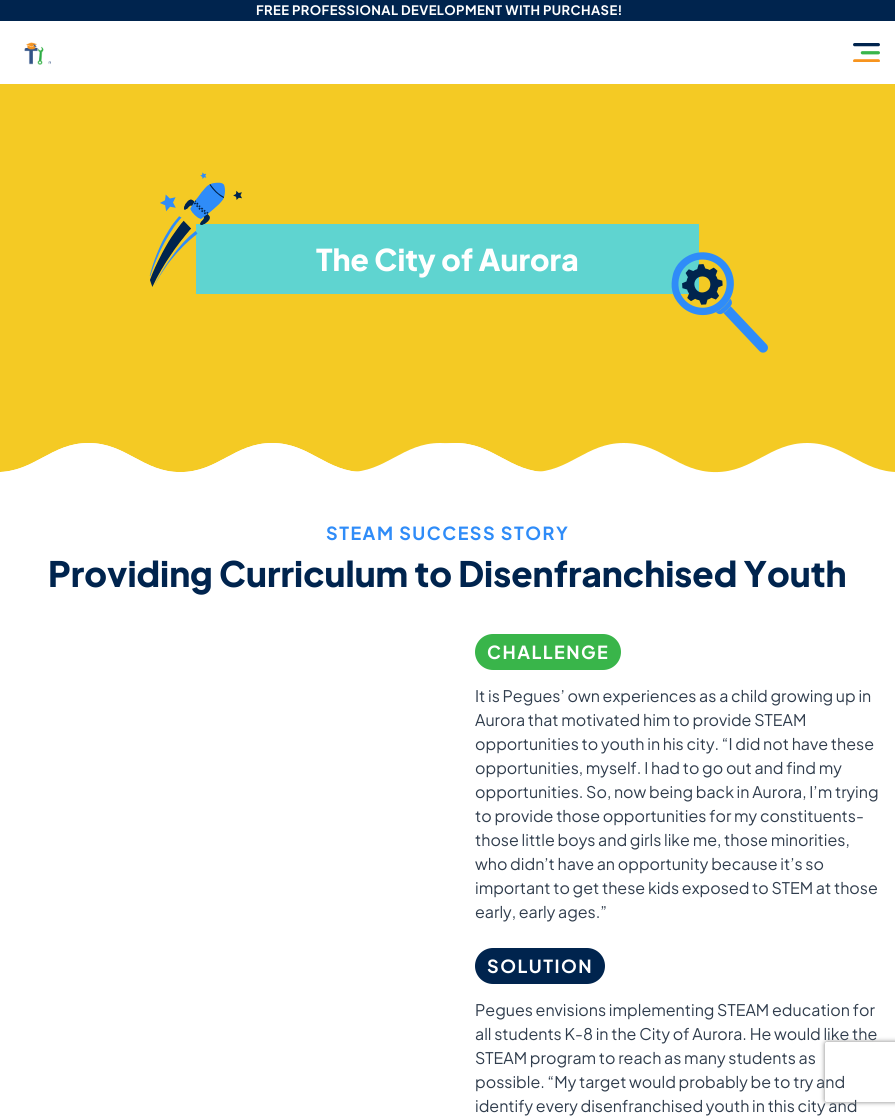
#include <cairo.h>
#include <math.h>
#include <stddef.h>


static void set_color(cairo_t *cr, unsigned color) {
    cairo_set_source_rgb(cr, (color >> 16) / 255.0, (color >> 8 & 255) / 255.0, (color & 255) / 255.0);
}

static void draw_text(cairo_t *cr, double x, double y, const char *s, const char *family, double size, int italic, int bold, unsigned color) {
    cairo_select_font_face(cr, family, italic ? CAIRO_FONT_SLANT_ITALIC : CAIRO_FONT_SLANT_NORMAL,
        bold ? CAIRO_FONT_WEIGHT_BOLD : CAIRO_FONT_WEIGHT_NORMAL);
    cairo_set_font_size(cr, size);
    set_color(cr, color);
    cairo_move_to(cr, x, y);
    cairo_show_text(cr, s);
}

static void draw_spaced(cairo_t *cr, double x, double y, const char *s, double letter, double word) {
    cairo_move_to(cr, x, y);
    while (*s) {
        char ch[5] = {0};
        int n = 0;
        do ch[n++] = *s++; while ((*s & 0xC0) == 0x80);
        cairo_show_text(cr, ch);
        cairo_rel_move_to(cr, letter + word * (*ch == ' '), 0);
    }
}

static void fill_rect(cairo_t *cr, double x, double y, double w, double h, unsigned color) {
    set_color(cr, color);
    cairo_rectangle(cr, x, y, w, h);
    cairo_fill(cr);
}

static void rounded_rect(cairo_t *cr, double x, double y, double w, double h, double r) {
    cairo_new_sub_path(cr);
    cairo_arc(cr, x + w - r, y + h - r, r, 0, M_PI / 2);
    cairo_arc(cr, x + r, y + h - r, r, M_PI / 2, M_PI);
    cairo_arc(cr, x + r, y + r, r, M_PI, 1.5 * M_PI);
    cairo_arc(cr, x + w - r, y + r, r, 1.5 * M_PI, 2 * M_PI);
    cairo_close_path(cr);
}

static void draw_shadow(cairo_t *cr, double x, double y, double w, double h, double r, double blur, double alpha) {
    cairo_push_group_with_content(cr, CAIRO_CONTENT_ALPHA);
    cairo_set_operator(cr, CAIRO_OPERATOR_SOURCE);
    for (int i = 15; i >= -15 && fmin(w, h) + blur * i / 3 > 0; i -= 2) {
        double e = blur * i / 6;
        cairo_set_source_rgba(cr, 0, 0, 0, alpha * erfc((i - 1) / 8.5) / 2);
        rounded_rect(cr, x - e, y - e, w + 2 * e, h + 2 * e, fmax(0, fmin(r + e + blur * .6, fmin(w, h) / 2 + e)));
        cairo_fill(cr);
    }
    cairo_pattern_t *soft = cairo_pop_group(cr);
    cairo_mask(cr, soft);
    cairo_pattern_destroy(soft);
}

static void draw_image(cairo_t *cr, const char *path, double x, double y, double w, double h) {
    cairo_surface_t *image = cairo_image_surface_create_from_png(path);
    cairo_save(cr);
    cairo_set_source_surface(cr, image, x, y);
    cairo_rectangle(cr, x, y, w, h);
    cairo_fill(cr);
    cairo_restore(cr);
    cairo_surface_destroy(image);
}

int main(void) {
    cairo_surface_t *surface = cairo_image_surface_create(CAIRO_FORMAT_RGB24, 895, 1116);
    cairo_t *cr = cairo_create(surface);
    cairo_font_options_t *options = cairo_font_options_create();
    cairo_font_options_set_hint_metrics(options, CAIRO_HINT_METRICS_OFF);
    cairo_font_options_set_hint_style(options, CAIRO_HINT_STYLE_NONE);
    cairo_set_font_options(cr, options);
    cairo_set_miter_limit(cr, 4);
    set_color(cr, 0xFFFFFF);
    cairo_paint(cr);
    fill_rect(cr, 0, 0, 895, 21, 0x00244E);
    cairo_select_font_face(cr, "Plus Jakarta Sans", CAIRO_FONT_SLANT_NORMAL, CAIRO_FONT_WEIGHT_BOLD);
    cairo_set_font_size(cr, 13);
    set_color(cr, 0xFFFFFF);
    draw_spaced(cr, 256, 15, "FREE PROFESSIONAL DEVELOPMENT WITH PURCHASE!", 0.4, 0);
    draw_image(cr, "assets/img1.png", 24, 42, 27, 23);
    draw_image(cr, "assets/img2.png", 853, 43, 27, 19);
    fill_rect(cr, 0, 84, 895, 389, 0xF4CA24);
    fill_rect(cr, 196, 224, 503, 70, 0x5FD4D0);
    draw_image(cr, "assets/img3.png", 149, 172, 93, 115);
    draw_text(cr, 316, 271, "The City of Aurora", "Plus Jakarta Sans ExtraBold", 30, 0, 0, 0xFFFFFF);
    draw_image(cr, "assets/img4.png", 671, 252, 97, 101);
    draw_image(cr, "assets/img5.png", 0, 443, 895, 51);
    cairo_select_font_face(cr, "Plus Jakarta Sans", CAIRO_FONT_SLANT_NORMAL, CAIRO_FONT_WEIGHT_BOLD);
    cairo_set_font_size(cr, 18);
    set_color(cr, 0x2F8CF8);
    draw_spaced(cr, 326, 540, "STEAM SUCCESS STORY", 1.5, 0);
    draw_text(cr, 48, 587, "Providing Curriculum to Disenfranchised Youth", "Plus Jakarta Sans ExtraBold", 35, 0, 0, 0x00244E);
    set_color(cr, 0x39B54A);
    rounded_rect(cr, 475, 634, 146, 36, 18);
    cairo_fill(cr);
    cairo_select_font_face(cr, "Plus Jakarta Sans", CAIRO_FONT_SLANT_NORMAL, CAIRO_FONT_WEIGHT_BOLD);
    cairo_set_font_size(cr, 18);
    set_color(cr, 0xFFFFFF);
    draw_spaced(cr, 487, 659, "CHALLENGE", 1.5, 0);
    draw_text(cr, 475, 702, "It is Pegues’ own experiences as a child growing up in", "Plus Jakarta Sans", 16, 0, 0, 0x303D4D);
    draw_text(cr, 475, 726, "Aurora that motivated him to provide STEAM", "Plus Jakarta Sans", 16, 0, 0, 0x303D4D);
    draw_text(cr, 475, 750, "opportunities to youth in his city. “I did not have these", "Plus Jakarta Sans", 16, 0, 0, 0x303D4D);
    draw_text(cr, 475, 774, "opportunities, myself. I had to go out and find my", "Plus Jakarta Sans", 16, 0, 0, 0x303D4D);
    draw_text(cr, 475, 798, "opportunities. So, now being back in Aurora, I’m trying", "Plus Jakarta Sans", 16, 0, 0, 0x303D4D);
    draw_text(cr, 475, 822, "to provide those opportunities for my constituents-", "Plus Jakarta Sans", 16, 0, 0, 0x303D4D);
    draw_text(cr, 475, 846, "those little boys and girls like me, those minorities,", "Plus Jakarta Sans", 16, 0, 0, 0x303D4D);
    draw_text(cr, 475, 870, "who didn’t have an opportunity because it’s so", "Plus Jakarta Sans", 16, 0, 0, 0x303D4D);
    draw_text(cr, 475, 894, "important to get these kids exposed to STEM at those", "Plus Jakarta Sans", 16, 0, 0, 0x303D4D);
    draw_text(cr, 475, 918, "early, early ages.”", "Plus Jakarta Sans", 16, 0, 0, 0x303D4D);
    set_color(cr, 0x00244E);
    rounded_rect(cr, 475, 948, 130, 36, 18);
    cairo_fill(cr);
    cairo_select_font_face(cr, "Plus Jakarta Sans", CAIRO_FONT_SLANT_NORMAL, CAIRO_FONT_WEIGHT_BOLD);
    cairo_set_font_size(cr, 18);
    set_color(cr, 0xFFFFFF);
    draw_spaced(cr, 487, 973, "SOLUTION", 1.5, 0);
    draw_text(cr, 475, 1016, "Pegues envisions implementing STEAM education for", "Plus Jakarta Sans", 16, 0, 0, 0x303D4D);
    draw_text(cr, 475, 1040, "all students K-8 in the City of Aurora. He would like the", "Plus Jakarta Sans", 16, 0, 0, 0x303D4D);
    draw_text(cr, 475, 1064, "STEAM program to reach as many students as", "Plus Jakarta Sans", 16, 0, 0, 0x303D4D);
    draw_text(cr, 475, 1088, "possible. “My target would probably be to try and", "Plus Jakarta Sans", 16, 0, 0, 0x303D4D);
    draw_text(cr, 475, 1112, "identify every disenfranchised youth in this city and", "Plus Jakarta Sans", 16, 0, 0, 0x303D4D);
    cairo_save(cr);
    cairo_set_fill_rule(cr, CAIRO_FILL_RULE_EVEN_ODD);
    cairo_new_path(cr);
    cairo_move_to(cr, 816, 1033);
    cairo_line_to(cr, 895, 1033);
    cairo_line_to(cr, 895, 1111);
    cairo_line_to(cr, 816, 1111);
    cairo_close_path(cr);
    cairo_move_to(cr, 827, 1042);
    cairo_line_to(cr, 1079, 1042);
    cairo_curve_to(cr, 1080, 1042, 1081, 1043, 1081, 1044);
    cairo_line_to(cr, 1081, 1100);
    cairo_curve_to(cr, 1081, 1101, 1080, 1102, 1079, 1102);
    cairo_line_to(cr, 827, 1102);
    cairo_curve_to(cr, 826, 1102, 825, 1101, 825, 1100);
    cairo_line_to(cr, 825, 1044);
    cairo_curve_to(cr, 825, 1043, 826, 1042, 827, 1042);
    cairo_close_path(cr);
    cairo_clip(cr);
    set_color(cr, 0x808080);
    draw_shadow(cr, 825, 1042, 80, 60, 2, 2.5, 1);
    cairo_restore(cr);
    cairo_surface_write_to_png(surface, "output.png");
    cairo_font_options_destroy(options);
    cairo_destroy(cr);
    cairo_surface_destroy(surface);
    return 0;
}
